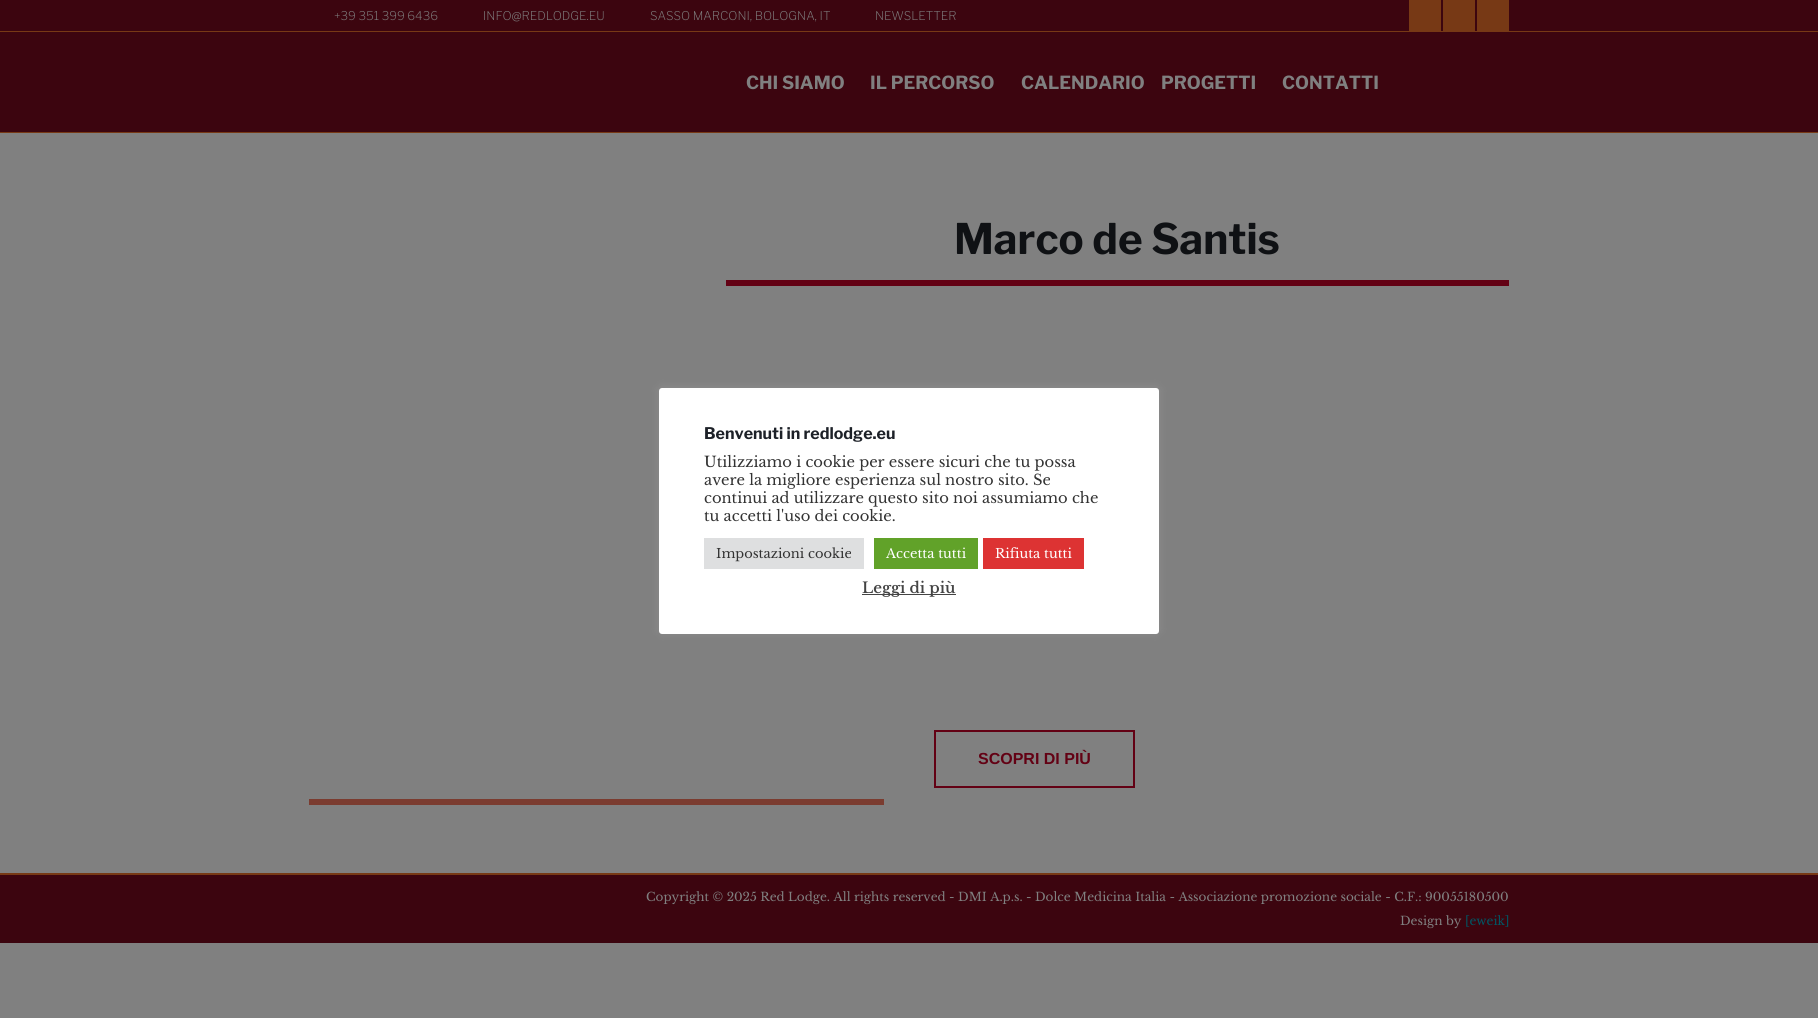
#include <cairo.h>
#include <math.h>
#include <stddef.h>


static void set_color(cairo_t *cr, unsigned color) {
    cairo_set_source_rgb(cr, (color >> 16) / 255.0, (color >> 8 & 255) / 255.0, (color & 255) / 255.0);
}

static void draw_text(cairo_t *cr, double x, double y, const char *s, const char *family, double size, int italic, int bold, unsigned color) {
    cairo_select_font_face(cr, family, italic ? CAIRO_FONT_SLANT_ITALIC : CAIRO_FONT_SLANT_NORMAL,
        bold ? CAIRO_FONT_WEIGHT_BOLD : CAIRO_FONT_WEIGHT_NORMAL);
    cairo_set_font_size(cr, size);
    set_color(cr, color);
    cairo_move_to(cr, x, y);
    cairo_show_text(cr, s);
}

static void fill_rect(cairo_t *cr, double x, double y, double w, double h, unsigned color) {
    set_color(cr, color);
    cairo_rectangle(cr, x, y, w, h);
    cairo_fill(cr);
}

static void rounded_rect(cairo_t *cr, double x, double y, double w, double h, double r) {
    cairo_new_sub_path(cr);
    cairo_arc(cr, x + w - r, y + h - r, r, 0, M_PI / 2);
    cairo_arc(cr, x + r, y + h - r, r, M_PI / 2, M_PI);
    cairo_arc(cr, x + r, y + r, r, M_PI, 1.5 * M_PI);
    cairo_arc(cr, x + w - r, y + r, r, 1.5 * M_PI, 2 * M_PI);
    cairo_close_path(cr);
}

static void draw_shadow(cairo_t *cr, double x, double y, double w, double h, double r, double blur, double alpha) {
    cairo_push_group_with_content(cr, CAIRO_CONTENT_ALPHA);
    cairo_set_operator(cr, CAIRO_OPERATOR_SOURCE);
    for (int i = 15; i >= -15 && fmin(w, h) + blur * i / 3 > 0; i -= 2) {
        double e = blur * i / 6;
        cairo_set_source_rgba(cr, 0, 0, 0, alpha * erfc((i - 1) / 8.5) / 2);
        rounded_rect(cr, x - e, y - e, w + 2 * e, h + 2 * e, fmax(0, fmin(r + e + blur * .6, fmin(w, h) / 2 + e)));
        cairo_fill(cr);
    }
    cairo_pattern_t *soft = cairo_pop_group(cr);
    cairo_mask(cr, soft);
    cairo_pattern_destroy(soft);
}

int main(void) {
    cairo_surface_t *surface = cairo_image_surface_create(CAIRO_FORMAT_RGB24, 1818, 1018);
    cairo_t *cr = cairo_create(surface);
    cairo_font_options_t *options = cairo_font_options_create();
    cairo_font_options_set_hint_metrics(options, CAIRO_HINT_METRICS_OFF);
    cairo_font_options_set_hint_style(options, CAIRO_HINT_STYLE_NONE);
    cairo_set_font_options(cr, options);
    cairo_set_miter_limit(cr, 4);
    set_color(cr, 0x808080);
    cairo_paint(cr);
    fill_rect(cr, 0, 0, 1818, 132, 0x3C050F);
    fill_rect(cr, 0, 132, 1818, 1, 0x773915);
    draw_text(cr, 334, 20, "+39 351 399 6436", "Libre Franklin ExtraLight", 12, 0, 0, 0x808080);
    draw_text(cr, 483, 20, "INFO@REDLODGE.EU", "Libre Franklin ExtraLight", 12, 0, 0, 0x808080);
    draw_text(cr, 650, 20, "SASSO MARCONI, BOLOGNA, IT", "Libre Franklin ExtraLight", 12, 0, 0, 0x808080);
    draw_text(cr, 875, 20, "NEWSLETTER", "Libre Franklin ExtraLight", 12, 0, 0, 0x808080);
    fill_rect(cr, 1409, 0, 32, 31, 0x773915);
    fill_rect(cr, 1443, 0, 32, 31, 0x773915);
    fill_rect(cr, 1477, 0, 32, 31, 0x773915);
    fill_rect(cr, 0, 31, 1818, 1, 0x773915);
    draw_text(cr, 746, 89, "CHI SIAMO", "Libre Franklin", 18, 0, 1, 0x808080);
    draw_text(cr, 870, 89, "IL PERCORSO", "Libre Franklin", 18, 0, 1, 0x808080);
    draw_text(cr, 1021, 89, "CALENDARIO", "Libre Franklin", 18, 0, 1, 0x808080);
    draw_text(cr, 1161, 89, "PROGETTI", "Libre Franklin", 18, 0, 1, 0x808080);
    draw_text(cr, 1282, 89, "CONTATTI", "Libre Franklin", 18, 0, 1, 0x808080);
    draw_text(cr, 954, 254, "Marco de Santis", "Libre Franklin", 42, 0, 1, 0x0F1114);
    fill_rect(cr, 726, 280, 783, 6, 0x630114);
    cairo_rectangle(cr, 935, 731, 199, 56);
    cairo_stroke(cr);
    draw_text(cr, 978, 764, "SCOPRI DI PIÙ", "Liberation Sans", 16, 0, 1, 0x630114);
    fill_rect(cr, 309, 799, 575, 6, 0x7B3C30);
    fill_rect(cr, 0, 875, 1818, 68, 0x3C050F);
    fill_rect(cr, 0, 873, 1818, 2, 0x773915);
    draw_text(cr, 646, 901, "Copyright © 2025 Red Lodge. All rights reserved - DMI A.p.s. - Dolce Medicina Italia - Associazione promozione sociale - C.F.: 90055180500", "Libre Baskerville", 12, 0, 0, 0x808080);
    draw_text(cr, 1400, 925, "Design by", "Libre Baskerville", 12, 0, 0, 0x808080);
    draw_text(cr, 1465, 925, "[eweik]", "Libre Baskerville", 12, 0, 0, 0x005764);
    set_color(cr, 0xACABAB);
    draw_shadow(cr, 659, 387, 500, 246, 3, 5, 0.3);
    set_color(cr, 0xFFFFFF);
    rounded_rect(cr, 659, 388, 500, 246, 3);
    cairo_fill(cr);
    draw_text(cr, 704, 439, "Benvenuti in redlodge.eu", "Libre Franklin", 16, 0, 1, 0x1D2128);
    draw_text(cr, 704, 467, "Utilizziamo i cookie per essere sicuri che tu possa", "Libre Baskerville", 14.7, 0, 0, 0x333333);
    draw_text(cr, 704, 485, "avere la migliore esperienza sul nostro sito. Se", "Libre Baskerville", 14.7, 0, 0, 0x333333);
    draw_text(cr, 704, 503, "continui ad utilizzare questo sito noi assumiamo che", "Libre Baskerville", 14.7, 0, 0, 0x333333);
    draw_text(cr, 704, 521, "tu accetti l'uso dei cookie.", "Libre Baskerville", 14.7, 0, 0, 0x333333);
    fill_rect(cr, 704, 538, 160, 31, 0xDEDFE0);
    draw_text(cr, 716, 558, "Impostazioni cookie", "Libre Baskerville", 13, 0, 0, 0x333333);
    fill_rect(cr, 874, 538, 104, 31, 0x61A229);
    draw_text(cr, 886, 558, "Accetta tutti", "Libre Baskerville", 13, 0, 0, 0xFFFFFF);
    fill_rect(cr, 983, 538, 101, 31, 0xDD3333);
    draw_text(cr, 995, 558, "Rifiuta tutti", "Libre Baskerville", 13, 0, 0, 0xFFFFFF);
    fill_rect(cr, 862, 594, 94, 1, 0x444444);
    draw_text(cr, 862, 593, "Leggi di più", "Libre Baskerville SemiBold", 15, 0, 0, 0x444444);
    cairo_surface_write_to_png(surface, "output.png");
    cairo_font_options_destroy(options);
    cairo_destroy(cr);
    cairo_surface_destroy(surface);
    return 0;
}
